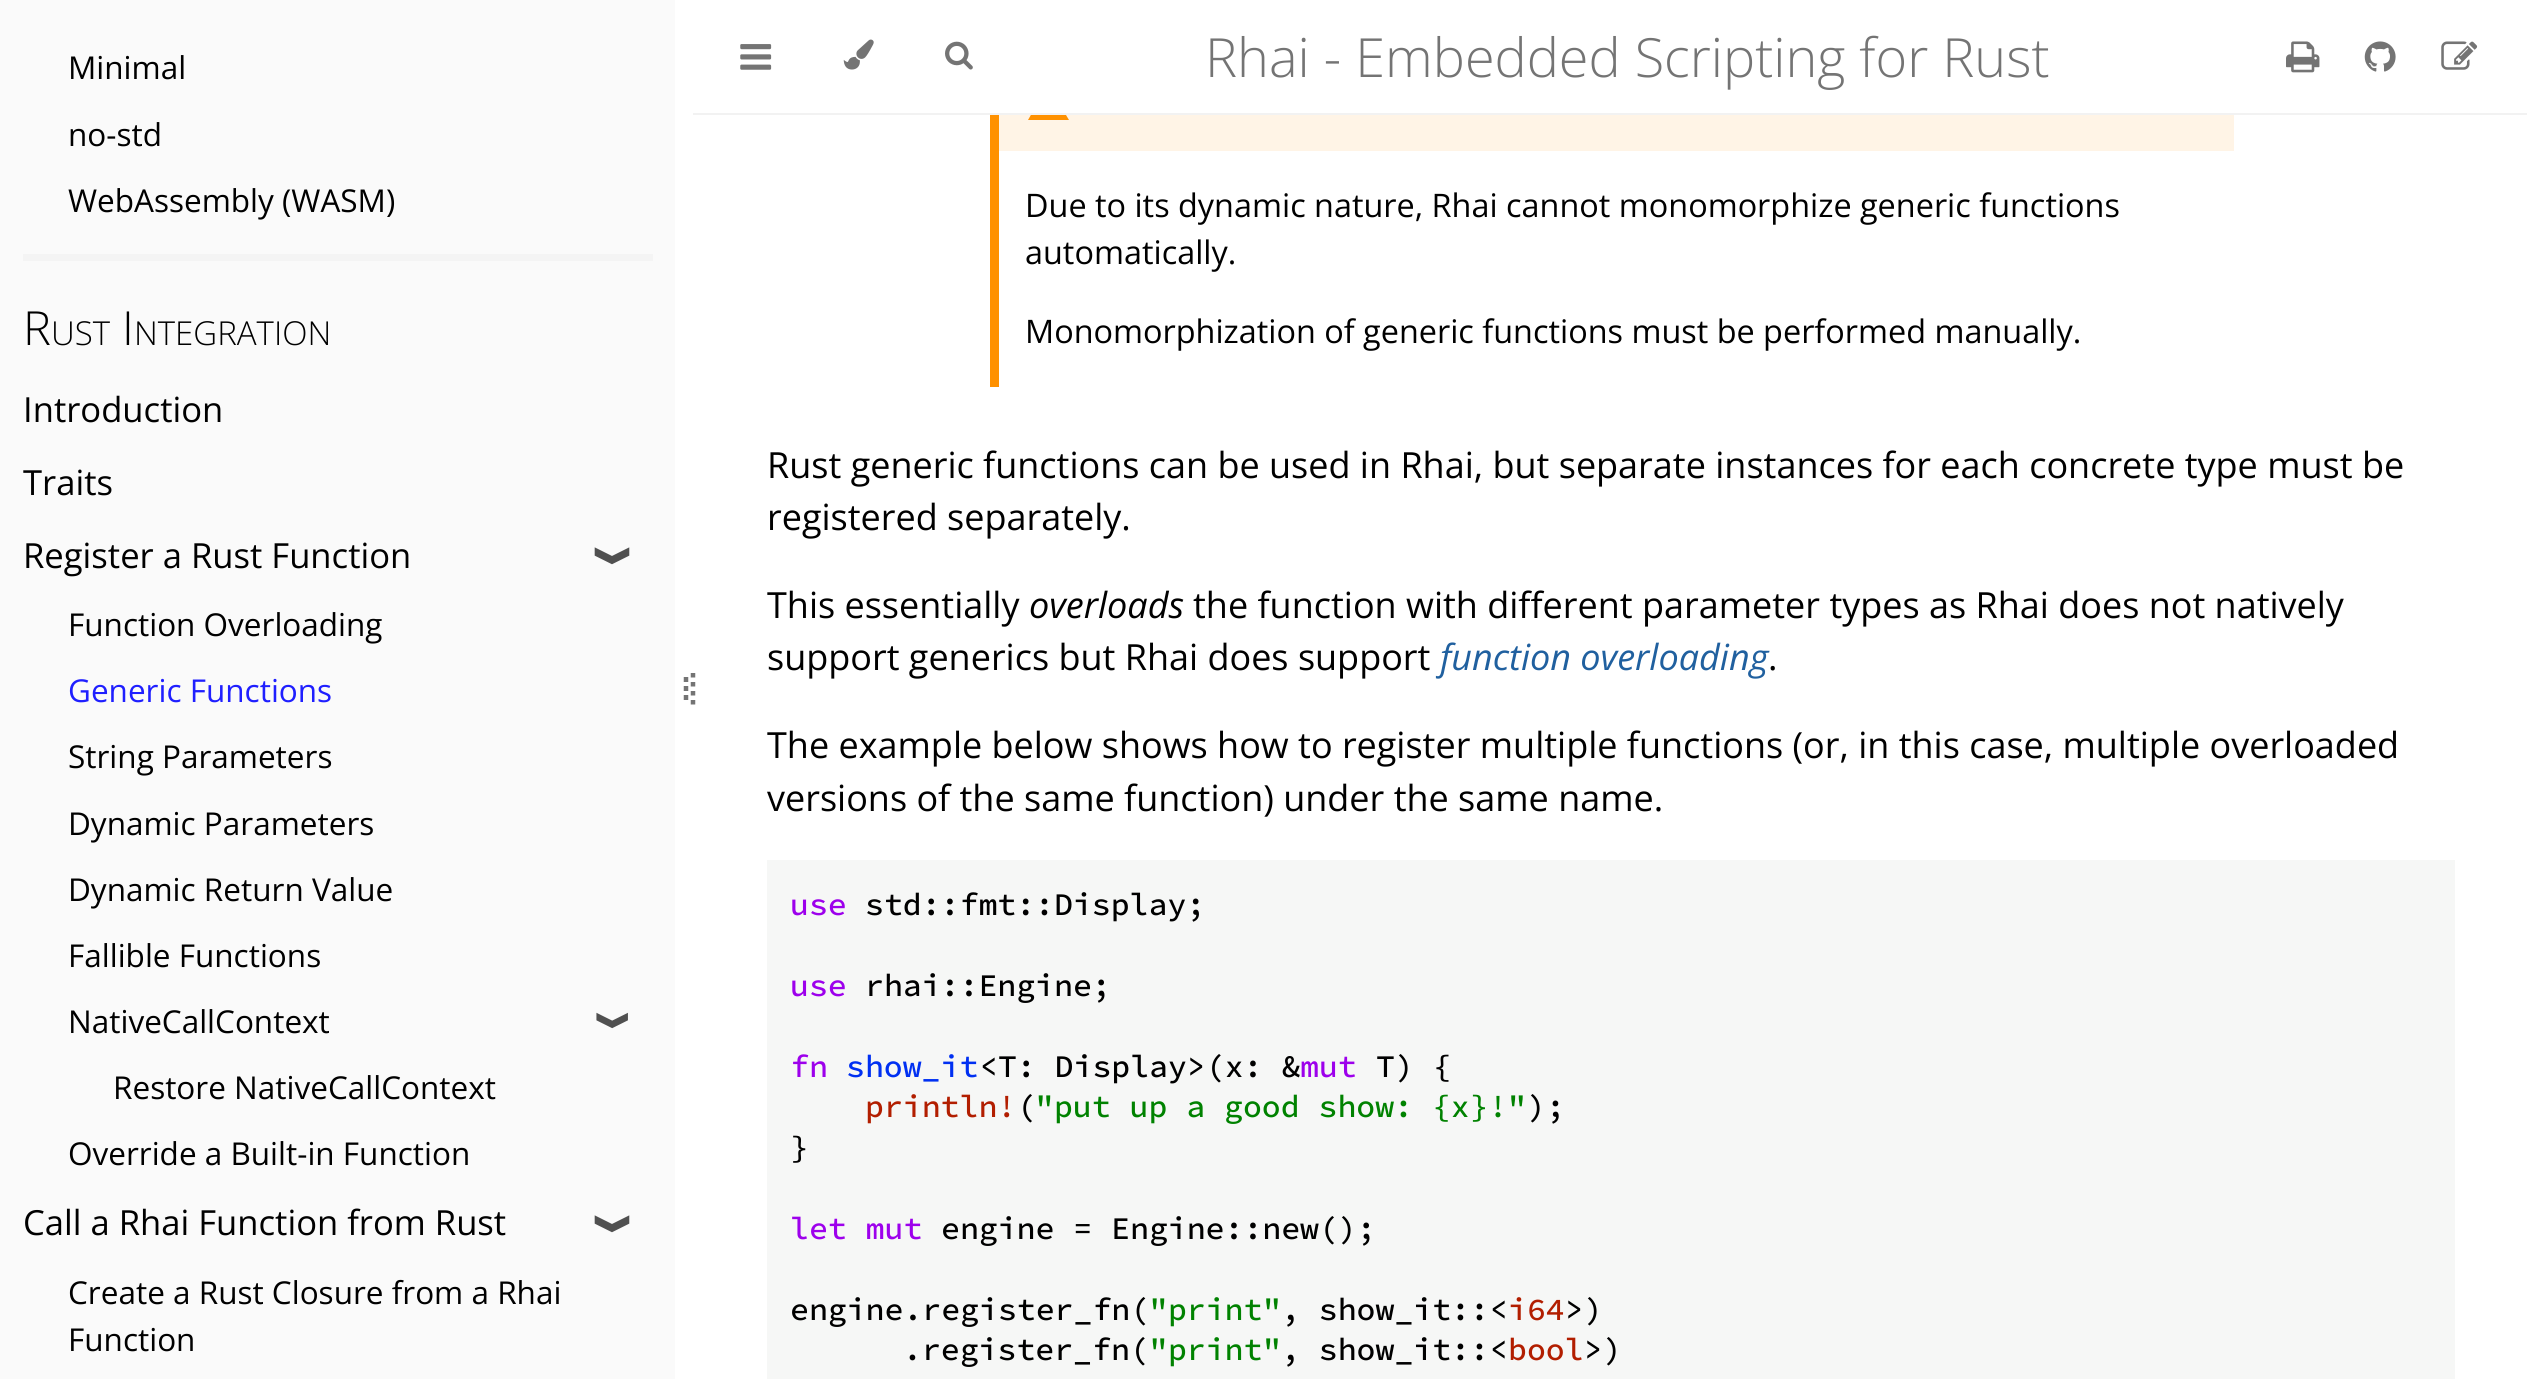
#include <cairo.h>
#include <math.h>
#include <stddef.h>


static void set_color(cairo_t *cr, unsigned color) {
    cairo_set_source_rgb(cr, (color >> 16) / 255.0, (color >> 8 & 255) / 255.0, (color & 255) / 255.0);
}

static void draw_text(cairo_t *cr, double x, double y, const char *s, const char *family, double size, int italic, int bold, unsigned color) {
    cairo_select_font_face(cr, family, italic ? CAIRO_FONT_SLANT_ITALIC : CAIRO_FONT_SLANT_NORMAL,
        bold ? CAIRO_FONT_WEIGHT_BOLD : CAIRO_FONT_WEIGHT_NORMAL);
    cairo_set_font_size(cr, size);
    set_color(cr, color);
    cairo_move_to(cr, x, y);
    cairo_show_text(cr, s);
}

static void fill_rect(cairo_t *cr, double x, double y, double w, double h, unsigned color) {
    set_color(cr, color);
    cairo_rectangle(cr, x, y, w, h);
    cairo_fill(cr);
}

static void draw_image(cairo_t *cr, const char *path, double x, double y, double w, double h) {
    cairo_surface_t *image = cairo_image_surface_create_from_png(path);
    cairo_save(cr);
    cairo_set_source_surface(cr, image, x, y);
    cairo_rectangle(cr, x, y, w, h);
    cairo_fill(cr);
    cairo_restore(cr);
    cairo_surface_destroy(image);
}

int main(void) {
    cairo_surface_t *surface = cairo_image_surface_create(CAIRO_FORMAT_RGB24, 2527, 1379);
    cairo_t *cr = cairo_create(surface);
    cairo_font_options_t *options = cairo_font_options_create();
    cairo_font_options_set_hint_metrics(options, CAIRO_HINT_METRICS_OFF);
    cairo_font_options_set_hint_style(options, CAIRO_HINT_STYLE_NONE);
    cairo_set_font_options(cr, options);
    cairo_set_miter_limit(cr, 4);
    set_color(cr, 0xFFFFFF);
    cairo_paint(cr);
    fill_rect(cr, 0, 0, 675, 1379, 0xFAFAFA);
    draw_text(cr, 68, 79, "Minimal", "Open Sans", 31.5, 0, 0, 0x000000);
    draw_text(cr, 68, 146, "no-std", "Open Sans", 31.5, 0, 0, 0x000000);
    draw_text(cr, 68, 212, "WebAssembly (WASM)", "Open Sans", 31.5, 0, 0, 0x000000);
    fill_rect(cr, 23, 254, 630, 7, 0xF4F4F4);
    draw_text(cr, 23, 345, "R", "Open Sans Light", 47, 0, 0, 0x000000);
    draw_text(cr, 51, 345, "UST", "Open Sans Light", 33, 0, 0, 0x000000);
    draw_text(cr, 122, 345, "I", "Open Sans Light", 47, 0, 0, 0x000000);
    draw_text(cr, 134, 345, "NTEGRATION", "Open Sans Light", 33, 0, 0, 0x000000);
    draw_text(cr, 23, 422, "Introduction", "Open Sans", 34.6, 0, 0, 0x000000);
    draw_text(cr, 23, 495, "Traits", "Open Sans", 34.6, 0, 0, 0x000000);
    draw_text(cr, 23, 568, "Register a Rust Function", "Open Sans", 34.6, 0, 0, 0x000000);
    cairo_save(cr);
    cairo_translate(cr, 603, 541);
    cairo_rotate(cr, 90 * M_PI / 180);
    draw_text(cr, 0, 0, "❱", "DejaVu Sans", 34.6, 0, 0, 0x505050);
    cairo_restore(cr);
    draw_text(cr, 68, 636, "Function Overloading", "Open Sans", 31.5, 0, 0, 0x000000);
    draw_text(cr, 68, 702, "Generic Functions", "Open Sans", 31.5, 0, 0, 0x1F1FFF);
    draw_text(cr, 68, 768, "String Parameters", "Open Sans", 31.5, 0, 0, 0x000000);
    draw_text(cr, 68, 835, "Dynamic Parameters", "Open Sans", 31.5, 0, 0, 0x000000);
    draw_text(cr, 68, 901, "Dynamic Return Value", "Open Sans", 31.5, 0, 0, 0x000000);
    draw_text(cr, 68, 967, "Fallible Functions", "Open Sans", 31.5, 0, 0, 0x000000);
    draw_text(cr, 68, 1033, "NativeCallContext", "Open Sans", 31.5, 0, 0, 0x000000);
    cairo_save(cr);
    cairo_translate(cr, 604, 1007);
    cairo_rotate(cr, 90 * M_PI / 180);
    draw_text(cr, 0, 0, "❱", "DejaVu Sans", 31.5, 0, 0, 0x505050);
    cairo_restore(cr);
    draw_text(cr, 113, 1099, "Restore NativeCallContext", "Open Sans", 31.5, 0, 0, 0x000000);
    draw_text(cr, 68, 1165, "Override a Built-in Function", "Open Sans", 31.5, 0, 0, 0x000000);
    draw_text(cr, 23, 1235, "Call a Rhai Function from Rust", "Open Sans", 34.6, 0, 0, 0x000000);
    cairo_save(cr);
    cairo_translate(cr, 603, 1209);
    cairo_rotate(cr, 90 * M_PI / 180);
    draw_text(cr, 0, 0, "❱", "DejaVu Sans", 34.6, 0, 0, 0x505050);
    cairo_restore(cr);
    draw_text(cr, 68, 1304, "Create a Rust Closure from a Rhai", "Open Sans", 31.5, 0, 0, 0x000000);
    draw_text(cr, 68, 1351, "Function", "Open Sans", 31.5, 0, 0, 0x000000);
    cairo_new_path(cr);
    cairo_move_to(cr, 686, 677);
    cairo_line_to(cr, 686, 682);
    cairo_move_to(cr, 686, 686);
    cairo_line_to(cr, 686, 691);
    cairo_move_to(cr, 686, 695);
    cairo_line_to(cr, 686, 700);
    set_color(cr, 0x747474);
    cairo_set_line_width(cr, 4.5);
    cairo_stroke(cr);
    cairo_new_path(cr);
    cairo_move_to(cr, 693, 673);
    cairo_line_to(cr, 693, 709);
    cairo_set_dash(cr, (double[]){4.5, 4.5}, 2, 0);
    cairo_stroke(cr);
    cairo_set_source_rgba(cr, 1, 0.569, 0, 0.1);
    cairo_rectangle(cr, 999, 115, 1235, 36);
    cairo_fill(cr);
    set_color(cr, 0xFF9100);
    cairo_new_path(cr);
    cairo_move_to(cr, 1050, 107);
    cairo_line_to(cr, 1047, 107);
    cairo_line_to(cr, 1047, 98);
    cairo_line_to(cr, 1050, 98);
    cairo_move_to(cr, 1050, 115);
    cairo_line_to(cr, 1047, 115);
    cairo_line_to(cr, 1047, 111);
    cairo_line_to(cr, 1050, 111);
    cairo_move_to(cr, 1028, 120);
    cairo_line_to(cr, 1069, 120);
    cairo_line_to(cr, 1048, 85);
    cairo_close_path(cr);
    cairo_fill(cr);
    fill_rect(cr, 1032, 85, 33, 28, 0xFFFFFF);
    fill_rect(cr, 693, 113, 1834, 2, 0xF2F2F2);
    draw_image(cr, "assets/img1.png", 740, 44, 32, 26);
    draw_image(cr, "assets/img2.png", 843, 39, 31, 31);
    draw_image(cr, "assets/img3.png", 945, 41, 28, 29);
    draw_text(cr, 1205, 77, "Rhai - Embedded Scripting for Rust", "Open Sans Light", 54, 0, 0, 0x747474);
    draw_image(cr, "assets/img4.png", 2286, 41, 34, 32);
    draw_image(cr, "assets/img5.png", 2364, 41, 32, 31);
    draw_image(cr, "assets/img6.png", 2441, 41, 37, 29);
    fill_rect(cr, 990, 115, 9, 272, 0xFF9100);
    draw_text(cr, 1025, 217, "Due to its dynamic nature, Rhai cannot monomorphize generic functions", "Open Sans", 32.4, 0, 0, 0x000000);
    draw_text(cr, 1025, 264, "automatically.", "Open Sans", 32.4, 0, 0, 0x000000);
    draw_text(cr, 1025, 343, "Monomorphization of generic functions must be performed manually.", "Open Sans", 32.4, 0, 0, 0x000000);
    draw_text(cr, 767, 478, "Rust generic functions can be used in Rhai, but separate instances for each concrete type must be", "Open Sans", 36, 0, 0, 0x000000);
    draw_text(cr, 767, 530, "registered separately.", "Open Sans", 36, 0, 0, 0x000000);
    draw_text(cr, 767, 618, "This essentially", "Open Sans", 36, 0, 0, 0x000000);
    draw_text(cr, 1029, 618, "overloads", "Open Sans", 36, 1, 0, 0x000000);
    draw_text(cr, 1193, 618, "the function with different parameter types as Rhai does not natively", "Open Sans", 36, 0, 0, 0x000000);
    draw_text(cr, 767, 670, "support generics but Rhai does support", "Open Sans", 36, 0, 0, 0x000000);
    draw_text(cr, 1440, 670, "function overloading", "Open Sans", 36, 1, 0, 0x20609F);
    draw_text(cr, 1768, 670, ".", "Open Sans", 36, 0, 0, 0x000000);
    draw_text(cr, 767, 758, "The example below shows how to register multiple functions (or, in this case, multiple overloaded", "Open Sans", 36, 0, 0, 0x000000);
    draw_text(cr, 767, 811, "versions of the same function) under the same name.", "Open Sans", 36, 0, 0, 0x000000);
    fill_rect(cr, 767, 860, 1688, 519, 0xF6F7F6);
    draw_text(cr, 790, 915, "use", "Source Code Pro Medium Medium", 31.5, 0, 0, 0x9D00EC);
    draw_text(cr, 865, 915, "std::fmt::Display;", "Source Code Pro Medium Medium", 31.5, 0, 0, 0x000000);
    draw_text(cr, 790, 996, "use", "Source Code Pro Medium Medium", 31.5, 0, 0, 0x9D00EC);
    draw_text(cr, 865, 996, "rhai::Engine;", "Source Code Pro Medium Medium", 31.5, 0, 0, 0x000000);
    draw_text(cr, 790, 1077, "fn", "Source Code Pro Medium Medium", 31.5, 0, 0, 0x9D00EC);
    draw_text(cr, 846, 1077, "show_it", "Source Code Pro Medium Medium", 31.5, 0, 0, 0x0030F2);
    draw_text(cr, 979, 1077, "<T: Display>(x: &", "Source Code Pro Medium Medium", 31.5, 0, 0, 0x000000);
    draw_text(cr, 1300, 1077, "mut", "Source Code Pro Medium Medium", 31.5, 0, 0, 0x9D00EC);
    draw_text(cr, 1376, 1077, "T) {", "Source Code Pro Medium Medium", 31.5, 0, 0, 0x000000);
    draw_text(cr, 865, 1117, "println!", "Source Code Pro Medium Medium", 31.5, 0, 0, 0xB21E00);
    draw_text(cr, 1017, 1117, "(", "Source Code Pro Medium Medium", 31.5, 0, 0, 0x000000);
    draw_text(cr, 1035, 1117, "\"put up a good show: {x}!\"", "Source Code Pro Medium Medium", 31.5, 0, 0, 0x008200);
    draw_text(cr, 1527, 1117, ");", "Source Code Pro Medium Medium", 31.5, 0, 0, 0x000000);
    draw_text(cr, 790, 1158, "}", "Source Code Pro Medium Medium", 31.5, 0, 0, 0x000000);
    draw_text(cr, 790, 1239, "let mut", "Source Code Pro Medium Medium", 31.5, 0, 0, 0x9D00EC);
    draw_text(cr, 941, 1239, "engine = Engine::new();", "Source Code Pro Medium Medium", 31.5, 0, 0, 0x000000);
    draw_text(cr, 790, 1320, "engine.register_fn(", "Source Code Pro Medium Medium", 31.5, 0, 0, 0x000000);
    draw_text(cr, 1149, 1320, "\"print\"", "Source Code Pro Medium Medium", 31.5, 0, 0, 0x008200);
    draw_text(cr, 1281, 1320, ", show_it::<", "Source Code Pro Medium Medium", 31.5, 0, 0, 0x000000);
    draw_text(cr, 1508, 1320, "i64", "Source Code Pro Medium Medium", 31.5, 0, 0, 0xB21E00);
    draw_text(cr, 1565, 1320, ">)", "Source Code Pro Medium Medium", 31.5, 0, 0, 0x000000);
    draw_text(cr, 903, 1360, ".register_fn(", "Source Code Pro Medium Medium", 31.5, 0, 0, 0x000000);
    draw_text(cr, 1149, 1360, "\"print\"", "Source Code Pro Medium Medium", 31.5, 0, 0, 0x008200);
    draw_text(cr, 1281, 1360, ", show_it::<", "Source Code Pro Medium Medium", 31.5, 0, 0, 0x000000);
    draw_text(cr, 1508, 1360, "bool", "Source Code Pro Medium Medium", 31.5, 0, 0, 0xB21E00);
    draw_text(cr, 1584, 1360, ">)", "Source Code Pro Medium Medium", 31.5, 0, 0, 0x000000);
    cairo_surface_write_to_png(surface, "output.png");
    cairo_font_options_destroy(options);
    cairo_destroy(cr);
    cairo_surface_destroy(surface);
    return 0;
}
